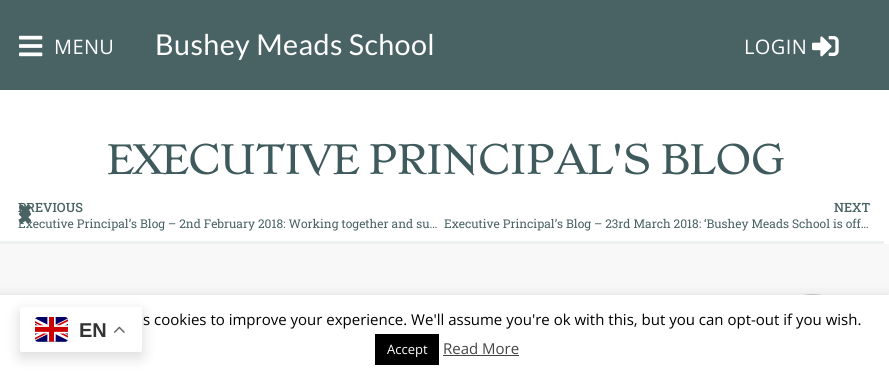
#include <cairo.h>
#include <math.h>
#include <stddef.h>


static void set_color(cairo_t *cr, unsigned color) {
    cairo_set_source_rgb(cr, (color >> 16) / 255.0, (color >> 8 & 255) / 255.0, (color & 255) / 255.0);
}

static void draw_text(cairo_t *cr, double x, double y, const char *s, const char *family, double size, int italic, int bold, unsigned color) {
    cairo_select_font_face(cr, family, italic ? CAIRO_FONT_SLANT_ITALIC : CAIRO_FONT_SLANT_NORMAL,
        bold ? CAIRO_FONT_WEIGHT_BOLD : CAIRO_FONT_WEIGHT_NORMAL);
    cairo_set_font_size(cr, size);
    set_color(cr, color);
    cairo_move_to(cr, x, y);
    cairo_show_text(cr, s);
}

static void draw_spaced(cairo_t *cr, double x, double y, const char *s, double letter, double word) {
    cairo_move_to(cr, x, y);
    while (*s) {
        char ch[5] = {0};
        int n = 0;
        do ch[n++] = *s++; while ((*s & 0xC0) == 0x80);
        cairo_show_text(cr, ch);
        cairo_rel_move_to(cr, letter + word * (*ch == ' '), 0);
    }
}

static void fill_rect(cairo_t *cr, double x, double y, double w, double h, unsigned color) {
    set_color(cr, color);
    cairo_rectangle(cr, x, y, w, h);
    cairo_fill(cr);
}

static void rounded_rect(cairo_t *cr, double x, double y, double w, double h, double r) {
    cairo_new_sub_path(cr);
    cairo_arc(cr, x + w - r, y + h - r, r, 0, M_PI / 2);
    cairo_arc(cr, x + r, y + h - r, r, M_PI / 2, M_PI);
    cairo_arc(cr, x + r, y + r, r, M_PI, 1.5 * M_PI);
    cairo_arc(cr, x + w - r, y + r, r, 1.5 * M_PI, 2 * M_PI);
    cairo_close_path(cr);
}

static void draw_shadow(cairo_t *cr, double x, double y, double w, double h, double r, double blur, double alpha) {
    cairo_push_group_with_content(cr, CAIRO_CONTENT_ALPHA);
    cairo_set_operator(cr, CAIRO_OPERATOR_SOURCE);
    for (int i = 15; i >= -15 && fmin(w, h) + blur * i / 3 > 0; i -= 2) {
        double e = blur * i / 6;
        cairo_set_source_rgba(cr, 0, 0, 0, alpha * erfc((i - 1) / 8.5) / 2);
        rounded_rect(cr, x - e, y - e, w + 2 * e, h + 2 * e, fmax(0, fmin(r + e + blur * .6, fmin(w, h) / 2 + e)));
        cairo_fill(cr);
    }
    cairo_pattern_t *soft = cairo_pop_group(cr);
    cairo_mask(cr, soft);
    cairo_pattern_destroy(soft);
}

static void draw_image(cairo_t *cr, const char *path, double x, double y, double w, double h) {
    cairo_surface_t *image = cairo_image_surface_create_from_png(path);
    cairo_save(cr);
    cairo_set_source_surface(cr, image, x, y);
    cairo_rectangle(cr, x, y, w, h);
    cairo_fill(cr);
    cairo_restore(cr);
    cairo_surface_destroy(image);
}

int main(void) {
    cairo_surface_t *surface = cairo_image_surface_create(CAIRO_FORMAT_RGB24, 889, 377);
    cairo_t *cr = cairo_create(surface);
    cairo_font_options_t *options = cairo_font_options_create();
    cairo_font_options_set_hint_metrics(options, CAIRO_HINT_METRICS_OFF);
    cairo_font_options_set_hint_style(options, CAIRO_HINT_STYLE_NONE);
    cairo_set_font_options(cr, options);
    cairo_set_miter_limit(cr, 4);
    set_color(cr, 0xFFFFFF);
    cairo_paint(cr);
    fill_rect(cr, 0, 0, 889, 90, 0x496264);
    draw_image(cr, "assets/img1.png", 19, 35, 24, 22);
    cairo_select_font_face(cr, "Open Sans", CAIRO_FONT_SLANT_NORMAL, CAIRO_FONT_WEIGHT_NORMAL);
    cairo_set_font_size(cr, 20);
    set_color(cr, 0xFFFFFF);
    draw_spaced(cr, 54, 54, "MENU", 0.4, 0);
    cairo_select_font_face(cr, "Lato", CAIRO_FONT_SLANT_NORMAL, CAIRO_FONT_WEIGHT_NORMAL);
    cairo_set_font_size(cr, 28.75);
    draw_spaced(cr, 155, 55, "Bushey Meads School", 0.4, 0);
    cairo_select_font_face(cr, "Open Sans", CAIRO_FONT_SLANT_NORMAL, CAIRO_FONT_WEIGHT_NORMAL);
    cairo_set_font_size(cr, 20);
    draw_spaced(cr, 744, 54, "LOGIN", 0.4, 0);
    draw_image(cr, "assets/img2.png", 812, 36, 27, 21);
    cairo_select_font_face(cr, "Stoke Light", CAIRO_FONT_SLANT_NORMAL, CAIRO_FONT_WEIGHT_NORMAL);
    cairo_set_font_size(cr, 40);
    set_color(cr, 0x3F5A5C);
    draw_spaced(cr, 107, 174, "EXECUTIVE PRINCIPAL'S BLOG", -1, 0);
    fill_rect(cr, 0, 241, 884, 3, 0xECF0F1);
    draw_text(cr, 18, 212, "PREVIOUS", "Roboto Slab Medium", 12.75, 0, 0, 0x496264);
    draw_text(cr, 18, 228, "Executive Principal’s Blog – 2nd February 2018: Working together and su…", "Roboto Slab", 12, 0, 0, 0x496264);
    draw_image(cr, "assets/img3.png", 19, 204, 12, 20);
    draw_image(cr, "assets/img4.png", 19, 204, 12, 20);
    draw_text(cr, 834, 212, "NEXT", "Roboto Slab Medium", 12.75, 0, 0, 0x496264);
    draw_text(cr, 444, 228, "Executive Principal’s Blog – 23rd March 2018: ‘Bushey Meads School is off…", "Roboto Slab", 12, 0, 0, 0x496264);
    fill_rect(cr, 0, 244, 889, 51, 0xF8F8F8);
    draw_image(cr, "assets/img5.png", 803, 294, 19, 1);
    set_color(cr, 0xACABAB);
    draw_shadow(cr, 0, 294, 889, 82, 0, 5, 0.3);
    fill_rect(cr, 0, 295, 889, 82, 0xFFFFFF);
    set_color(cr, 0x000000);
    draw_shadow(cr, 20, 312, 122, 45, 2, 7.5, 0.15);
    set_color(cr, 0xFFFFFF);
    rounded_rect(cr, 20, 307, 122, 45, 2);
    cairo_fill(cr);
    draw_image(cr, "assets/img6.png", 35, 317, 33, 25);
    draw_text(cr, 79, 337, "EN", "Liberation Sans", 20, 0, 1, 0x333333);
    draw_image(cr, "assets/img7.png", 114, 326, 11, 7);
    draw_text(cr, 143, 325, "s cookies to improve your experience. We'll assume you're ok with this, but you can opt-out if you wish.", "Open Sans", 15, 0, 0, 0x000000);
    fill_rect(cr, 375, 334, 64, 31, 0x000000);
    draw_text(cr, 387, 354, "Accept", "Open Sans", 13, 0, 0, 0xFFFFFF);
    draw_text(cr, 443, 354, "Read More", "Open Sans", 15, 0, 0, 0x444444);
    fill_rect(cr, 443, 355, 76, 1, 0x444444);
    cairo_surface_write_to_png(surface, "output.png");
    cairo_font_options_destroy(options);
    cairo_destroy(cr);
    cairo_surface_destroy(surface);
    return 0;
}
